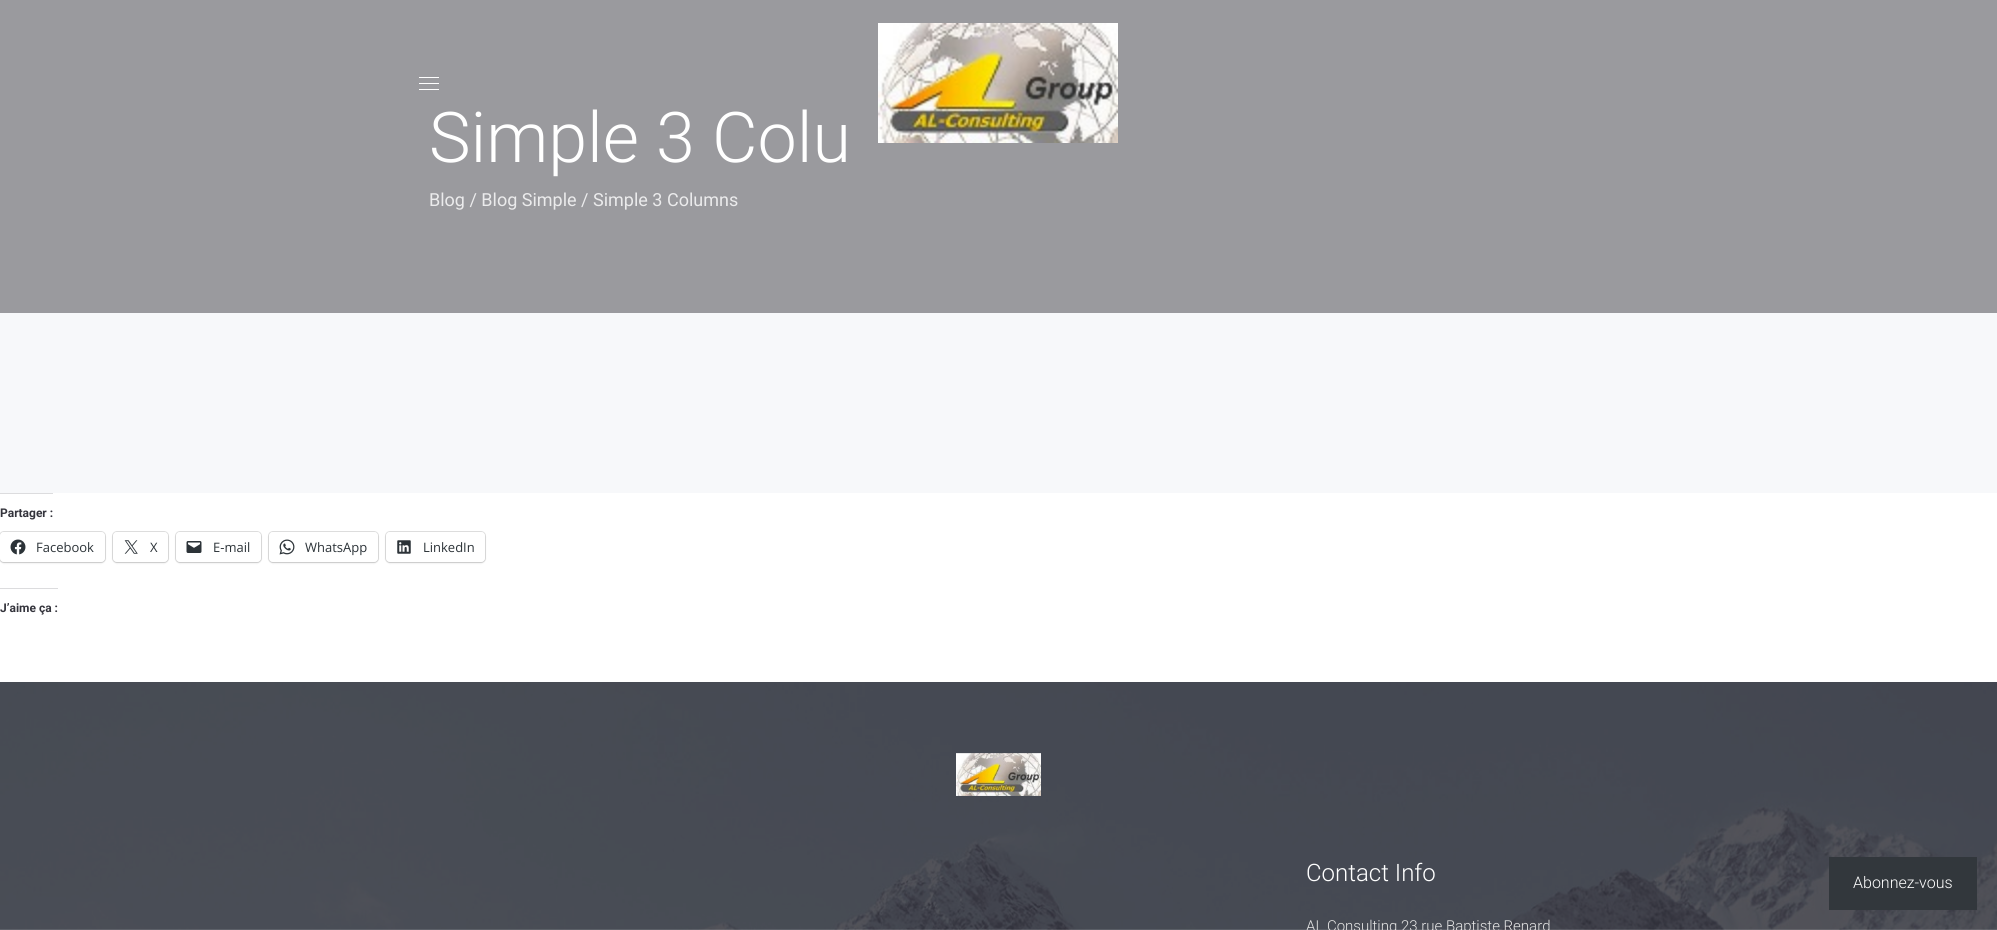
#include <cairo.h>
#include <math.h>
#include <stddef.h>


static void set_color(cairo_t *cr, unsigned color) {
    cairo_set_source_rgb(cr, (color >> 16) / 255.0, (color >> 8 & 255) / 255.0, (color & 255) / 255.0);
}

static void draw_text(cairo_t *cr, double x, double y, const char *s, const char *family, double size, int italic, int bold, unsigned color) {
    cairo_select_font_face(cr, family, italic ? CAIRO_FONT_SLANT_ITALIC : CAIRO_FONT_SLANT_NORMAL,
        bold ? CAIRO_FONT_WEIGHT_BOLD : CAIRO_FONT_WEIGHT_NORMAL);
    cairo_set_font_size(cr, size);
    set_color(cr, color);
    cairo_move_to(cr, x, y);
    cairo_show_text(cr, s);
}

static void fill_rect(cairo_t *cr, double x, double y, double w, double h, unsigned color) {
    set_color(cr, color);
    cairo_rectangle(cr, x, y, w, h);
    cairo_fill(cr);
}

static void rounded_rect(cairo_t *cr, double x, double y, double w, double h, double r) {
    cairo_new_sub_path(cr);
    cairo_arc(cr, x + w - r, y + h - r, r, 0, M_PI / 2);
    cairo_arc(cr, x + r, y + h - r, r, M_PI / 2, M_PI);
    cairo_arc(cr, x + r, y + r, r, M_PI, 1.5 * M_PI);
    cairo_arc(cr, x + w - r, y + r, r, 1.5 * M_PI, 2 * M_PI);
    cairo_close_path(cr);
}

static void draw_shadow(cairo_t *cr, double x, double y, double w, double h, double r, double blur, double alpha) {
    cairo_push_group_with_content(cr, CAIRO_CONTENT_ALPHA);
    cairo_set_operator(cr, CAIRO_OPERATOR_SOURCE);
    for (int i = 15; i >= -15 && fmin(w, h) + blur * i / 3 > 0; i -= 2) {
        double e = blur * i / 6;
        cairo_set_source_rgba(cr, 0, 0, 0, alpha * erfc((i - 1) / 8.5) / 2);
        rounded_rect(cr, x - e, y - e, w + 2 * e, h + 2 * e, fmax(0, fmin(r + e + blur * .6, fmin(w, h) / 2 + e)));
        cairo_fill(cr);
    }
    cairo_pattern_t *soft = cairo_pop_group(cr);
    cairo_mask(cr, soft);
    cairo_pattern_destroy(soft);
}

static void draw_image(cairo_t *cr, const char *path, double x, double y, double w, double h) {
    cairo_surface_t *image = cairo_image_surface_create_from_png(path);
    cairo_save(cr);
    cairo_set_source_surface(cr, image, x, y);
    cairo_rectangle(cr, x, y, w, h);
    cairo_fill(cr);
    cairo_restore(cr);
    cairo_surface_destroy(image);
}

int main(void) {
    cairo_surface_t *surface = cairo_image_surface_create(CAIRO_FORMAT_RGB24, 1997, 930);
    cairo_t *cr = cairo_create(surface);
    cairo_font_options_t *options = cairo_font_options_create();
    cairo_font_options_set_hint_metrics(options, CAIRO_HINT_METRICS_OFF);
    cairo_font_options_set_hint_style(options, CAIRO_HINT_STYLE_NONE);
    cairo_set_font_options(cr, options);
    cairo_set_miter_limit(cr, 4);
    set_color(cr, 0xFFFFFF);
    cairo_paint(cr);
    fill_rect(cr, 0, 0, 1997, 313, 0x9A9A9E);
    fill_rect(cr, 419, 83, 20, 1, 0xFFFFFF);
    fill_rect(cr, 419, 77, 20, 1, 0xFFFFFF);
    fill_rect(cr, 419, 89, 20, 1, 0xFFFFFF);
    draw_image(cr, "assets/img1.png", 878, 23, 240, 120);
    draw_text(cr, 429, 162, "Simple 3 Colu", "Roboto Light", 70, 0, 0, 0xFFFFFF);
    draw_text(cr, 429, 206, "Blog / Blog Simple / Simple 3 Columns", "Roboto", 18, 0, 0, 0xEBEBEC);
    fill_rect(cr, 0, 313, 1997, 180, 0xF7F8FA);
    fill_rect(cr, 0, 493, 53, 1, 0xDCDCDE);
    draw_text(cr, 0, 517, "Partager :", "Roboto", 12, 0, 1, 0x34343C);
    rounded_rect(cr, -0.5, 531.5, 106, 31, 4.5);
    set_color(cr, 0xE0E0E0);
    cairo_set_line_width(cr, 1);
    cairo_stroke(cr);
    set_color(cr, 0x000000);
    draw_shadow(cr, 0, 533, 105, 30, 4, 1, 0.12);
    set_color(cr, 0xFFFFFF);
    rounded_rect(cr, 0, 532, 105, 30, 4);
    cairo_fill(cr);
    draw_image(cr, "assets/img2.png", 10, 539, 16, 16);
    draw_text(cr, 36, 552, "Facebook", "Open Sans", 13, 0, 0, 0x2C3338);
    rounded_rect(cr, 112.5, 531.5, 56, 31, 4.5);
    set_color(cr, 0xE0E0E0);
    cairo_stroke(cr);
    set_color(cr, 0x000000);
    draw_shadow(cr, 113, 533, 55, 30, 4, 1, 0.12);
    set_color(cr, 0xFFFFFF);
    rounded_rect(cr, 113, 532, 55, 30, 4);
    cairo_fill(cr);
    draw_image(cr, "assets/img3.png", 124, 540, 14, 14);
    draw_text(cr, 150, 552, "X", "Open Sans", 13, 0, 0, 0x2C3338);
    rounded_rect(cr, 175.5, 531.5, 86, 31, 4.5);
    set_color(cr, 0xE0E0E0);
    cairo_stroke(cr);
    set_color(cr, 0x000000);
    draw_shadow(cr, 176, 533, 85, 30, 4, 1, 0.12);
    set_color(cr, 0xFFFFFF);
    rounded_rect(cr, 176, 532, 85, 30, 4);
    cairo_fill(cr);
    draw_image(cr, "assets/img4.png", 186, 541, 16, 12);
    draw_text(cr, 213, 552, "E-mail", "Open Sans", 13, 0, 0, 0x2C3338);
    rounded_rect(cr, 268.5, 531.5, 110, 31, 4.5);
    set_color(cr, 0xE0E0E0);
    cairo_stroke(cr);
    set_color(cr, 0x000000);
    draw_shadow(cr, 269, 533, 109, 30, 4, 1, 0.12);
    set_color(cr, 0xFFFFFF);
    rounded_rect(cr, 269, 532, 109, 30, 4);
    cairo_fill(cr);
    draw_image(cr, "assets/img5.png", 279, 539, 16, 16);
    draw_text(cr, 305, 552, "WhatsApp", "Open Sans", 13, 0, 0, 0x2C3338);
    rounded_rect(cr, 385.5, 531.5, 100, 31, 4.5);
    set_color(cr, 0xE0E0E0);
    cairo_stroke(cr);
    set_color(cr, 0x000000);
    draw_shadow(cr, 386, 533, 99, 30, 4, 1, 0.12);
    set_color(cr, 0xFFFFFF);
    rounded_rect(cr, 386, 532, 99, 30, 4);
    cairo_fill(cr);
    draw_image(cr, "assets/img6.png", 397, 540, 14, 14);
    draw_text(cr, 423, 552, "LinkedIn", "Open Sans", 13, 0, 0, 0x2C3338);
    fill_rect(cr, 0, 588, 58, 1, 0xDCDCDE);
    draw_text(cr, 0, 612, "J’aime ça :", "Roboto", 12, 0, 1, 0x34343C);
    draw_image(cr, "assets/img7.png", 0, 682, 1997, 248);
    draw_image(cr, "assets/img8.png", 956, 753, 85, 43);
    draw_text(cr, 1306, 881, "Contact Info", "Roboto Light", 24, 0, 0, 0xFFFFFF);
    draw_text(cr, 1306, 931, "AL Consulting 23 rue Baptiste Renard", "Roboto Light", 15, 0, 0, 0xE6E6E6);
    fill_rect(cr, 1829, 857, 148, 53, 0x32373C);
    draw_text(cr, 1853, 888, "Abonnez-vous", "Roboto Light", 16, 0, 0, 0xFFFFFF);
    cairo_surface_write_to_png(surface, "output.png");
    cairo_font_options_destroy(options);
    cairo_destroy(cr);
    cairo_surface_destroy(surface);
    return 0;
}
